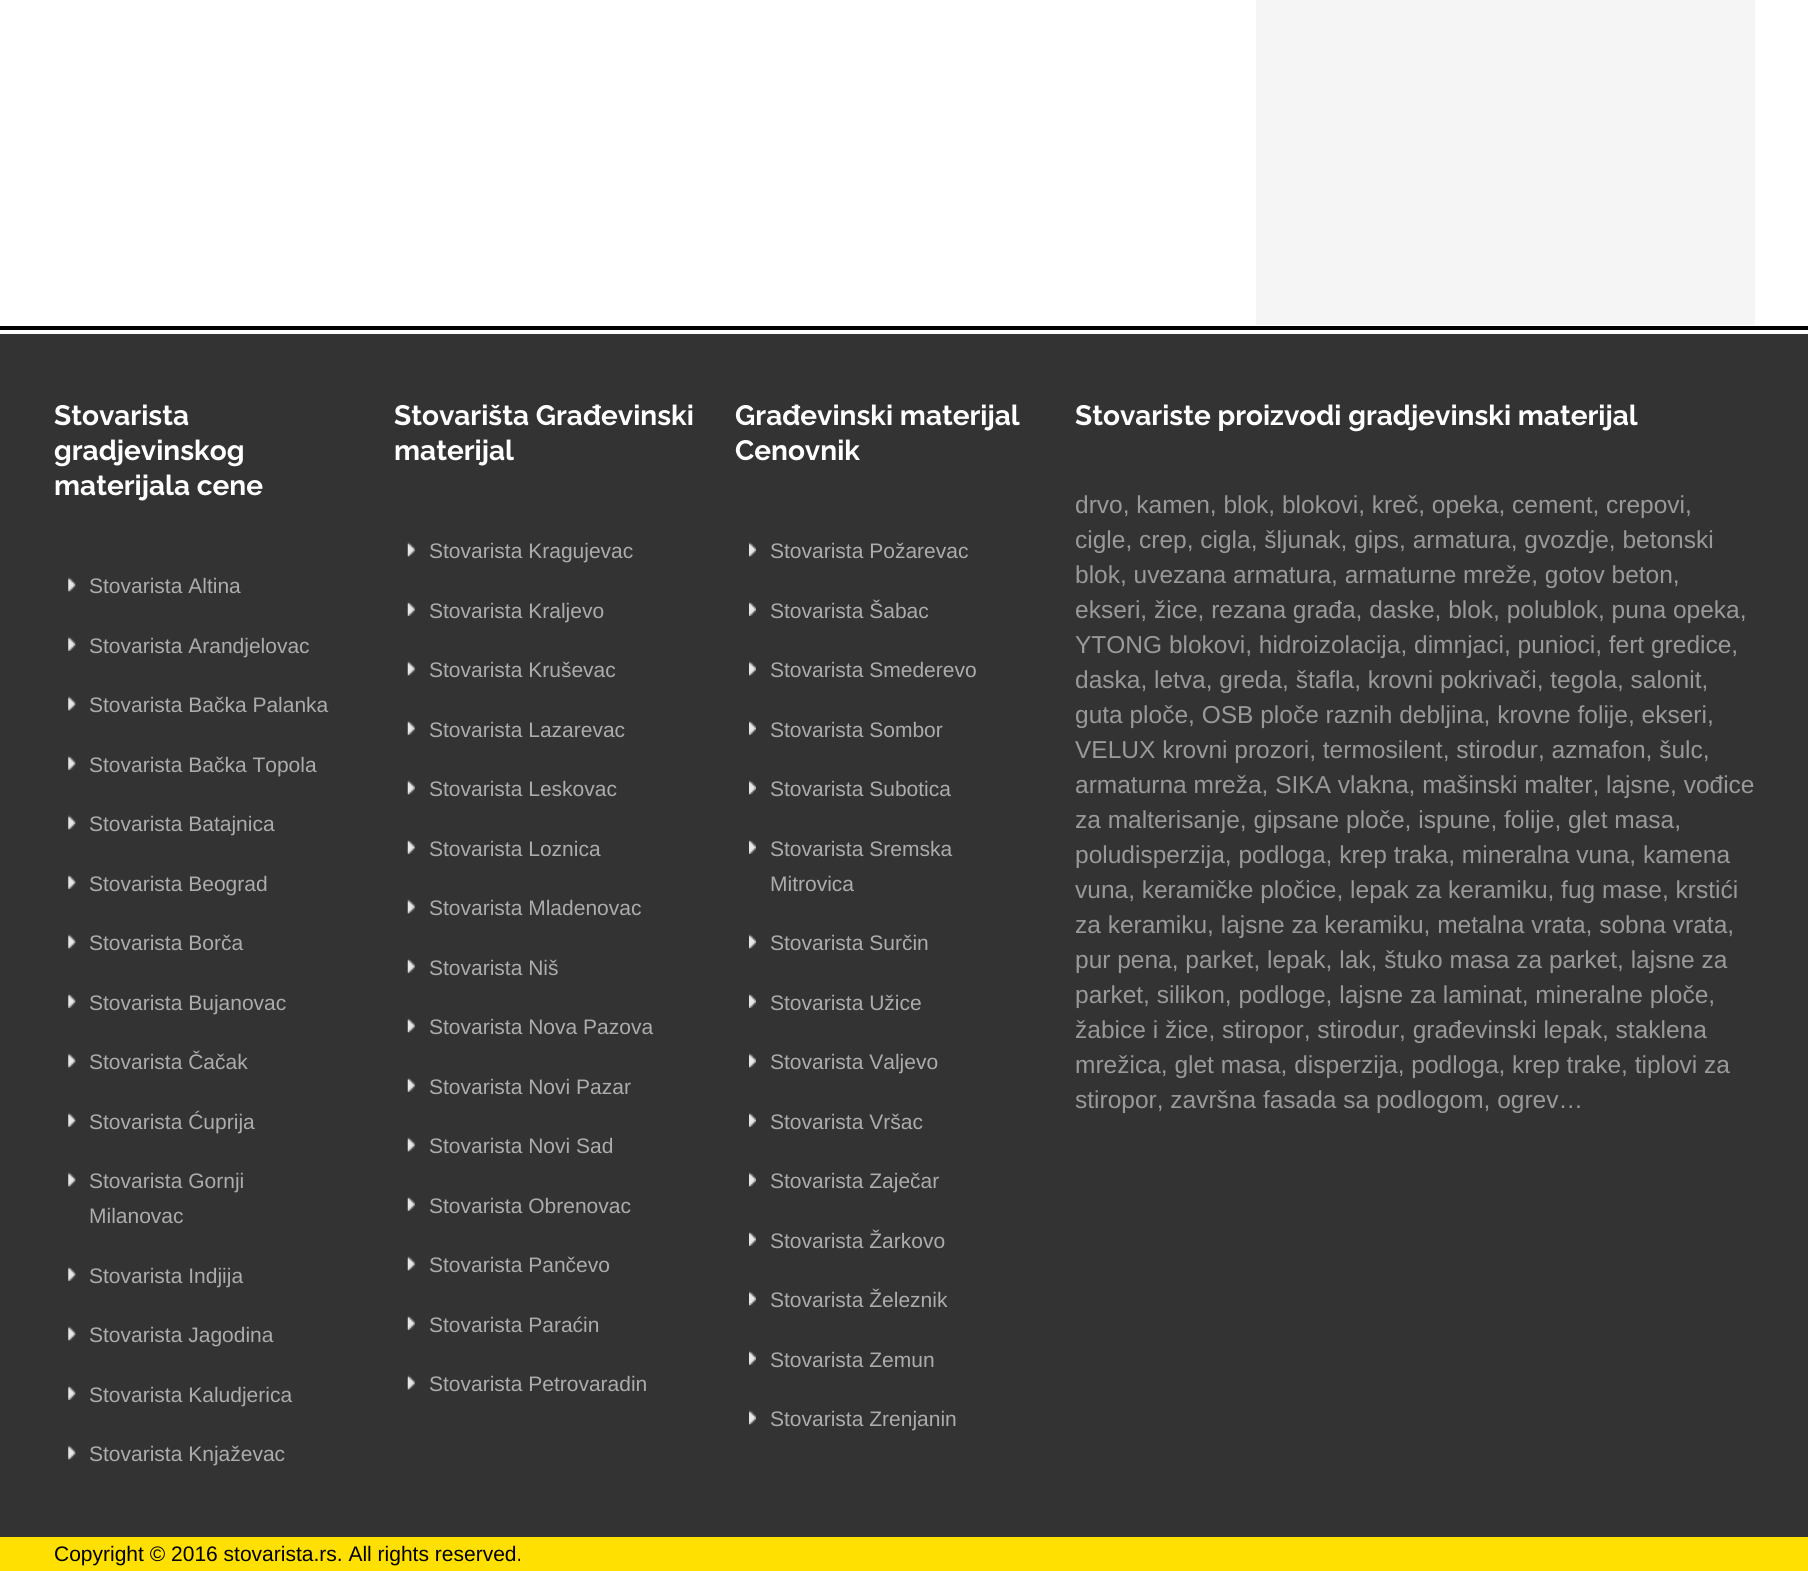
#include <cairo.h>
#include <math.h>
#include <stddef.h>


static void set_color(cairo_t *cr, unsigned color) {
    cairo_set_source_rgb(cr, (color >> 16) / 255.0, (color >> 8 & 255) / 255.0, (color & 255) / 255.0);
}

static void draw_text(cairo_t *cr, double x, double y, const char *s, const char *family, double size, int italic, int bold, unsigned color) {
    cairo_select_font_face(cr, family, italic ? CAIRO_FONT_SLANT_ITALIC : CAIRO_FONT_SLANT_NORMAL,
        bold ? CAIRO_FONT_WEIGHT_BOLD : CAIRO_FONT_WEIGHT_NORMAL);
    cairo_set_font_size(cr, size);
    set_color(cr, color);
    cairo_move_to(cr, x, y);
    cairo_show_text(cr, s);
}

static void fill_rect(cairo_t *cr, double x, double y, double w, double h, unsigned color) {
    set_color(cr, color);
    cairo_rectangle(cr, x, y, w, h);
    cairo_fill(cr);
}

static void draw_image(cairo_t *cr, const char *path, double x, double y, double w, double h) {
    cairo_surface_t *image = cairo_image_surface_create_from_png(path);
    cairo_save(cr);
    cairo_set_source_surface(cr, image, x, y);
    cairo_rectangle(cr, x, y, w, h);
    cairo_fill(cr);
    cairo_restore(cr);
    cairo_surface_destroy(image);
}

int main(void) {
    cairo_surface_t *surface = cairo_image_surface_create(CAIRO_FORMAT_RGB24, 1808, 1571);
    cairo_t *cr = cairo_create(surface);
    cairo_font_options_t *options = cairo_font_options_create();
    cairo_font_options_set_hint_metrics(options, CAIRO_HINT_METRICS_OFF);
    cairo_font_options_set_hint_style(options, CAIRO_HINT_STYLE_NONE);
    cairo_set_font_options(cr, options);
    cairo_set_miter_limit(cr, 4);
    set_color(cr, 0xFFE000);
    cairo_paint(cr);
    fill_rect(cr, 0, 0, 1808, 326, 0xFFFFFF);
    fill_rect(cr, 1256, 0, 499, 325, 0xF5F5F5);
    fill_rect(cr, 0, 334, 1808, 1203, 0x333333);
    fill_rect(cr, 0, 330, 1808, 4, 0xFDFDFD);
    fill_rect(cr, 0, 326, 1808, 4, 0x000000);
    draw_text(cr, 54, 425, "Stovarista", "Raleway", 28, 0, 1, 0xFFFFFF);
    draw_text(cr, 54, 460, "gradjevinskog", "Raleway", 28, 0, 1, 0xFFFFFF);
    draw_text(cr, 54, 495, "materijala cene", "Raleway", 28, 0, 1, 0xFFFFFF);
    draw_image(cr, "assets/img1.png", 68, 577, 8, 15);
    draw_text(cr, 89, 593, "Stovarista Altina", "Liberation Sans", 21, 0, 0, 0xACACAC);
    draw_image(cr, "assets/img2.png", 68, 636, 8, 15);
    draw_text(cr, 89, 653, "Stovarista Arandjelovac", "Liberation Sans", 21, 0, 0, 0xACACAC);
    draw_image(cr, "assets/img1.png", 68, 696, 8, 15);
    draw_text(cr, 89, 712, "Stovarista Bačka Palanka", "Liberation Sans", 21, 0, 0, 0xACACAC);
    draw_image(cr, "assets/img2.png", 68, 755, 8, 15);
    draw_text(cr, 89, 772, "Stovarista Bačka Topola", "Liberation Sans", 21, 0, 0, 0xACACAC);
    draw_image(cr, "assets/img1.png", 68, 815, 8, 15);
    draw_text(cr, 89, 831, "Stovarista Batajnica", "Liberation Sans", 21, 0, 0, 0xACACAC);
    draw_image(cr, "assets/img2.png", 68, 874, 8, 15);
    draw_text(cr, 89, 891, "Stovarista Beograd", "Liberation Sans", 21, 0, 0, 0xACACAC);
    draw_image(cr, "assets/img1.png", 68, 934, 8, 15);
    draw_text(cr, 89, 950, "Stovarista Borča", "Liberation Sans", 21, 0, 0, 0xACACAC);
    draw_image(cr, "assets/img2.png", 68, 993, 8, 15);
    draw_text(cr, 89, 1010, "Stovarista Bujanovac", "Liberation Sans", 21, 0, 0, 0xACACAC);
    draw_image(cr, "assets/img1.png", 68, 1053, 8, 15);
    draw_text(cr, 89, 1069, "Stovarista Čačak", "Liberation Sans", 21, 0, 0, 0xACACAC);
    draw_image(cr, "assets/img2.png", 68, 1112, 8, 15);
    draw_text(cr, 89, 1129, "Stovarista Ćuprija", "Liberation Sans", 21, 0, 0, 0xACACAC);
    draw_image(cr, "assets/img1.png", 68, 1172, 8, 15);
    draw_text(cr, 89, 1188, "Stovarista Gornji", "Liberation Sans", 21, 0, 0, 0xACACAC);
    draw_text(cr, 89, 1223, "Milanovac", "Liberation Sans", 21, 0, 0, 0xACACAC);
    draw_image(cr, "assets/img2.png", 68, 1266, 8, 15);
    draw_text(cr, 89, 1283, "Stovarista Indjija", "Liberation Sans", 21, 0, 0, 0xACACAC);
    draw_image(cr, "assets/img1.png", 68, 1326, 8, 15);
    draw_text(cr, 89, 1342, "Stovarista Jagodina", "Liberation Sans", 21, 0, 0, 0xACACAC);
    draw_image(cr, "assets/img2.png", 68, 1385, 8, 15);
    draw_text(cr, 89, 1402, "Stovarista Kaludjerica", "Liberation Sans", 21, 0, 0, 0xACACAC);
    draw_image(cr, "assets/img1.png", 68, 1445, 8, 15);
    draw_text(cr, 89, 1461, "Stovarista Knjaževac", "Liberation Sans", 21, 0, 0, 0xACACAC);
    draw_text(cr, 394, 425, "Stovarišta Građevinski", "Raleway", 28, 0, 1, 0xFFFFFF);
    draw_text(cr, 394, 460, "materijal", "Raleway", 28, 0, 1, 0xFFFFFF);
    draw_image(cr, "assets/img3.png", 407, 542, 8, 15);
    draw_text(cr, 429, 558, "Stovarista Kragujevac", "Liberation Sans", 21, 0, 0, 0xACACAC);
    draw_image(cr, "assets/img4.png", 407, 601, 8, 15);
    draw_text(cr, 429, 618, "Stovarista Kraljevo", "Liberation Sans", 21, 0, 0, 0xACACAC);
    draw_image(cr, "assets/img3.png", 407, 661, 8, 15);
    draw_text(cr, 429, 677, "Stovarista Kruševac", "Liberation Sans", 21, 0, 0, 0xACACAC);
    draw_image(cr, "assets/img4.png", 407, 720, 8, 15);
    draw_text(cr, 429, 737, "Stovarista Lazarevac", "Liberation Sans", 21, 0, 0, 0xACACAC);
    draw_image(cr, "assets/img3.png", 407, 780, 8, 15);
    draw_text(cr, 429, 796, "Stovarista Leskovac", "Liberation Sans", 21, 0, 0, 0xACACAC);
    draw_image(cr, "assets/img4.png", 407, 839, 8, 15);
    draw_text(cr, 429, 856, "Stovarista Loznica", "Liberation Sans", 21, 0, 0, 0xACACAC);
    draw_image(cr, "assets/img3.png", 407, 899, 8, 15);
    draw_text(cr, 429, 915, "Stovarista Mladenovac", "Liberation Sans", 21, 0, 0, 0xACACAC);
    draw_image(cr, "assets/img4.png", 407, 958, 8, 15);
    draw_text(cr, 429, 975, "Stovarista Niš", "Liberation Sans", 21, 0, 0, 0xACACAC);
    draw_image(cr, "assets/img3.png", 407, 1018, 8, 15);
    draw_text(cr, 429, 1034, "Stovarista Nova Pazova", "Liberation Sans", 21, 0, 0, 0xACACAC);
    draw_image(cr, "assets/img4.png", 407, 1077, 8, 15);
    draw_text(cr, 429, 1094, "Stovarista Novi Pazar", "Liberation Sans", 21, 0, 0, 0xACACAC);
    draw_image(cr, "assets/img3.png", 407, 1137, 8, 15);
    draw_text(cr, 429, 1153, "Stovarista Novi Sad", "Liberation Sans", 21, 0, 0, 0xACACAC);
    draw_image(cr, "assets/img4.png", 407, 1196, 8, 15);
    draw_text(cr, 429, 1213, "Stovarista Obrenovac", "Liberation Sans", 21, 0, 0, 0xACACAC);
    draw_image(cr, "assets/img3.png", 407, 1256, 8, 15);
    draw_text(cr, 429, 1272, "Stovarista Pančevo", "Liberation Sans", 21, 0, 0, 0xACACAC);
    draw_image(cr, "assets/img4.png", 407, 1315, 8, 15);
    draw_text(cr, 429, 1332, "Stovarista Paraćin", "Liberation Sans", 21, 0, 0, 0xACACAC);
    draw_image(cr, "assets/img3.png", 407, 1375, 8, 15);
    draw_text(cr, 429, 1391, "Stovarista Petrovaradin", "Liberation Sans", 21, 0, 0, 0xACACAC);
    draw_text(cr, 735, 425, "Građevinski materijal", "Raleway", 28, 0, 1, 0xFFFFFF);
    draw_text(cr, 735, 460, "Cenovnik", "Raleway", 28, 0, 1, 0xFFFFFF);
    draw_image(cr, "assets/img5.png", 749, 542, 7, 15);
    draw_text(cr, 770, 558, "Stovarista Požarevac", "Liberation Sans", 21, 0, 0, 0xACACAC);
    draw_image(cr, "assets/img6.png", 749, 601, 7, 15);
    draw_text(cr, 770, 618, "Stovarista Šabac", "Liberation Sans", 21, 0, 0, 0xACACAC);
    draw_image(cr, "assets/img5.png", 749, 661, 7, 15);
    draw_text(cr, 770, 677, "Stovarista Smederevo", "Liberation Sans", 21, 0, 0, 0xACACAC);
    draw_image(cr, "assets/img6.png", 749, 720, 7, 15);
    draw_text(cr, 770, 737, "Stovarista Sombor", "Liberation Sans", 21, 0, 0, 0xACACAC);
    draw_image(cr, "assets/img5.png", 749, 780, 7, 15);
    draw_text(cr, 770, 796, "Stovarista Subotica", "Liberation Sans", 21, 0, 0, 0xACACAC);
    draw_image(cr, "assets/img6.png", 749, 839, 7, 15);
    draw_text(cr, 770, 856, "Stovarista Sremska", "Liberation Sans", 21, 0, 0, 0xACACAC);
    draw_text(cr, 770, 891, "Mitrovica", "Liberation Sans", 21, 0, 0, 0xACACAC);
    draw_image(cr, "assets/img5.png", 749, 934, 7, 15);
    draw_text(cr, 770, 950, "Stovarista Surčin", "Liberation Sans", 21, 0, 0, 0xACACAC);
    draw_image(cr, "assets/img6.png", 749, 993, 7, 15);
    draw_text(cr, 770, 1010, "Stovarista Užice", "Liberation Sans", 21, 0, 0, 0xACACAC);
    draw_image(cr, "assets/img5.png", 749, 1053, 7, 15);
    draw_text(cr, 770, 1069, "Stovarista Valjevo", "Liberation Sans", 21, 0, 0, 0xACACAC);
    draw_image(cr, "assets/img6.png", 749, 1112, 7, 15);
    draw_text(cr, 770, 1129, "Stovarista Vršac", "Liberation Sans", 21, 0, 0, 0xACACAC);
    draw_image(cr, "assets/img5.png", 749, 1172, 7, 15);
    draw_text(cr, 770, 1188, "Stovarista Zaječar", "Liberation Sans", 21, 0, 0, 0xACACAC);
    draw_image(cr, "assets/img6.png", 749, 1231, 7, 15);
    draw_text(cr, 770, 1248, "Stovarista Žarkovo", "Liberation Sans", 21, 0, 0, 0xACACAC);
    draw_image(cr, "assets/img5.png", 749, 1291, 7, 15);
    draw_text(cr, 770, 1307, "Stovarista Železnik", "Liberation Sans", 21, 0, 0, 0xACACAC);
    draw_image(cr, "assets/img6.png", 749, 1350, 7, 15);
    draw_text(cr, 770, 1367, "Stovarista Zemun", "Liberation Sans", 21, 0, 0, 0xACACAC);
    draw_image(cr, "assets/img5.png", 749, 1410, 7, 15);
    draw_text(cr, 770, 1426, "Stovarista Zrenjanin", "Liberation Sans", 21, 0, 0, 0xACACAC);
    draw_text(cr, 1075, 425, "Stovariste proizvodi gradjevinski materijal", "Raleway", 28, 0, 1, 0xFFFFFF);
    draw_text(cr, 1075, 513, "drvo, kamen, blok, blokovi, kreč, opeka, cement, crepovi,", "Liberation Sans", 24.5, 0, 0, 0x999999);
    draw_text(cr, 1075, 548, "cigle, crep, cigla, šljunak, gips, armatura, gvozdje, betonski", "Liberation Sans", 24.5, 0, 0, 0x999999);
    draw_text(cr, 1075, 583, "blok, uvezana armatura, armaturne mreže, gotov beton,", "Liberation Sans", 24.5, 0, 0, 0x999999);
    draw_text(cr, 1075, 618, "ekseri, žice, rezana građa, daske, blok, polublok, puna opeka,", "Liberation Sans", 24.5, 0, 0, 0x999999);
    draw_text(cr, 1075, 653, "YTONG blokovi, hidroizolacija, dimnjaci, punioci, fert gredice,", "Liberation Sans", 24.5, 0, 0, 0x999999);
    draw_text(cr, 1075, 688, "daska, letva, greda, štafla, krovni pokrivači, tegola, salonit,", "Liberation Sans", 24.5, 0, 0, 0x999999);
    draw_text(cr, 1075, 723, "guta ploče, OSB ploče raznih debljina, krovne folije, ekseri,", "Liberation Sans", 24.5, 0, 0, 0x999999);
    draw_text(cr, 1075, 758, "VELUX krovni prozori, termosilent, stirodur, azmafon, šulc,", "Liberation Sans", 24.5, 0, 0, 0x999999);
    draw_text(cr, 1075, 793, "armaturna mreža, SIKA vlakna, mašinski malter, lajsne, vođice", "Liberation Sans", 24.5, 0, 0, 0x999999);
    draw_text(cr, 1075, 828, "za malterisanje, gipsane ploče, ispune, folije, glet masa,", "Liberation Sans", 24.5, 0, 0, 0x999999);
    draw_text(cr, 1075, 863, "poludisperzija, podloga, krep traka, mineralna vuna, kamena", "Liberation Sans", 24.5, 0, 0, 0x999999);
    draw_text(cr, 1075, 898, "vuna, keramičke pločice, lepak za keramiku, fug mase, krstići", "Liberation Sans", 24.5, 0, 0, 0x999999);
    draw_text(cr, 1075, 933, "za keramiku, lajsne za keramiku, metalna vrata, sobna vrata,", "Liberation Sans", 24.5, 0, 0, 0x999999);
    draw_text(cr, 1075, 968, "pur pena, parket, lepak, lak, štuko masa za parket, lajsne za", "Liberation Sans", 24.5, 0, 0, 0x999999);
    draw_text(cr, 1075, 1003, "parket, silikon, podloge, lajsne za laminat, mineralne ploče,", "Liberation Sans", 24.5, 0, 0, 0x999999);
    draw_text(cr, 1075, 1038, "žabice i žice, stiropor, stirodur, građevinski lepak, staklena", "Liberation Sans", 24.5, 0, 0, 0x999999);
    draw_text(cr, 1075, 1073, "mrežica, glet masa, disperzija, podloga, krep trake, tiplovi za", "Liberation Sans", 24.5, 0, 0, 0x999999);
    draw_text(cr, 1075, 1108, "stiropor, završna fasada sa podlogom, ogrev…", "Liberation Sans", 24.5, 0, 0, 0x999999);
    draw_text(cr, 54, 1561, "Copyright © 2016 stovarista.rs. All rights reserved.", "Liberation Sans", 21, 0, 0, 0x000000);
    cairo_surface_write_to_png(surface, "output.png");
    cairo_font_options_destroy(options);
    cairo_destroy(cr);
    cairo_surface_destroy(surface);
    return 0;
}
